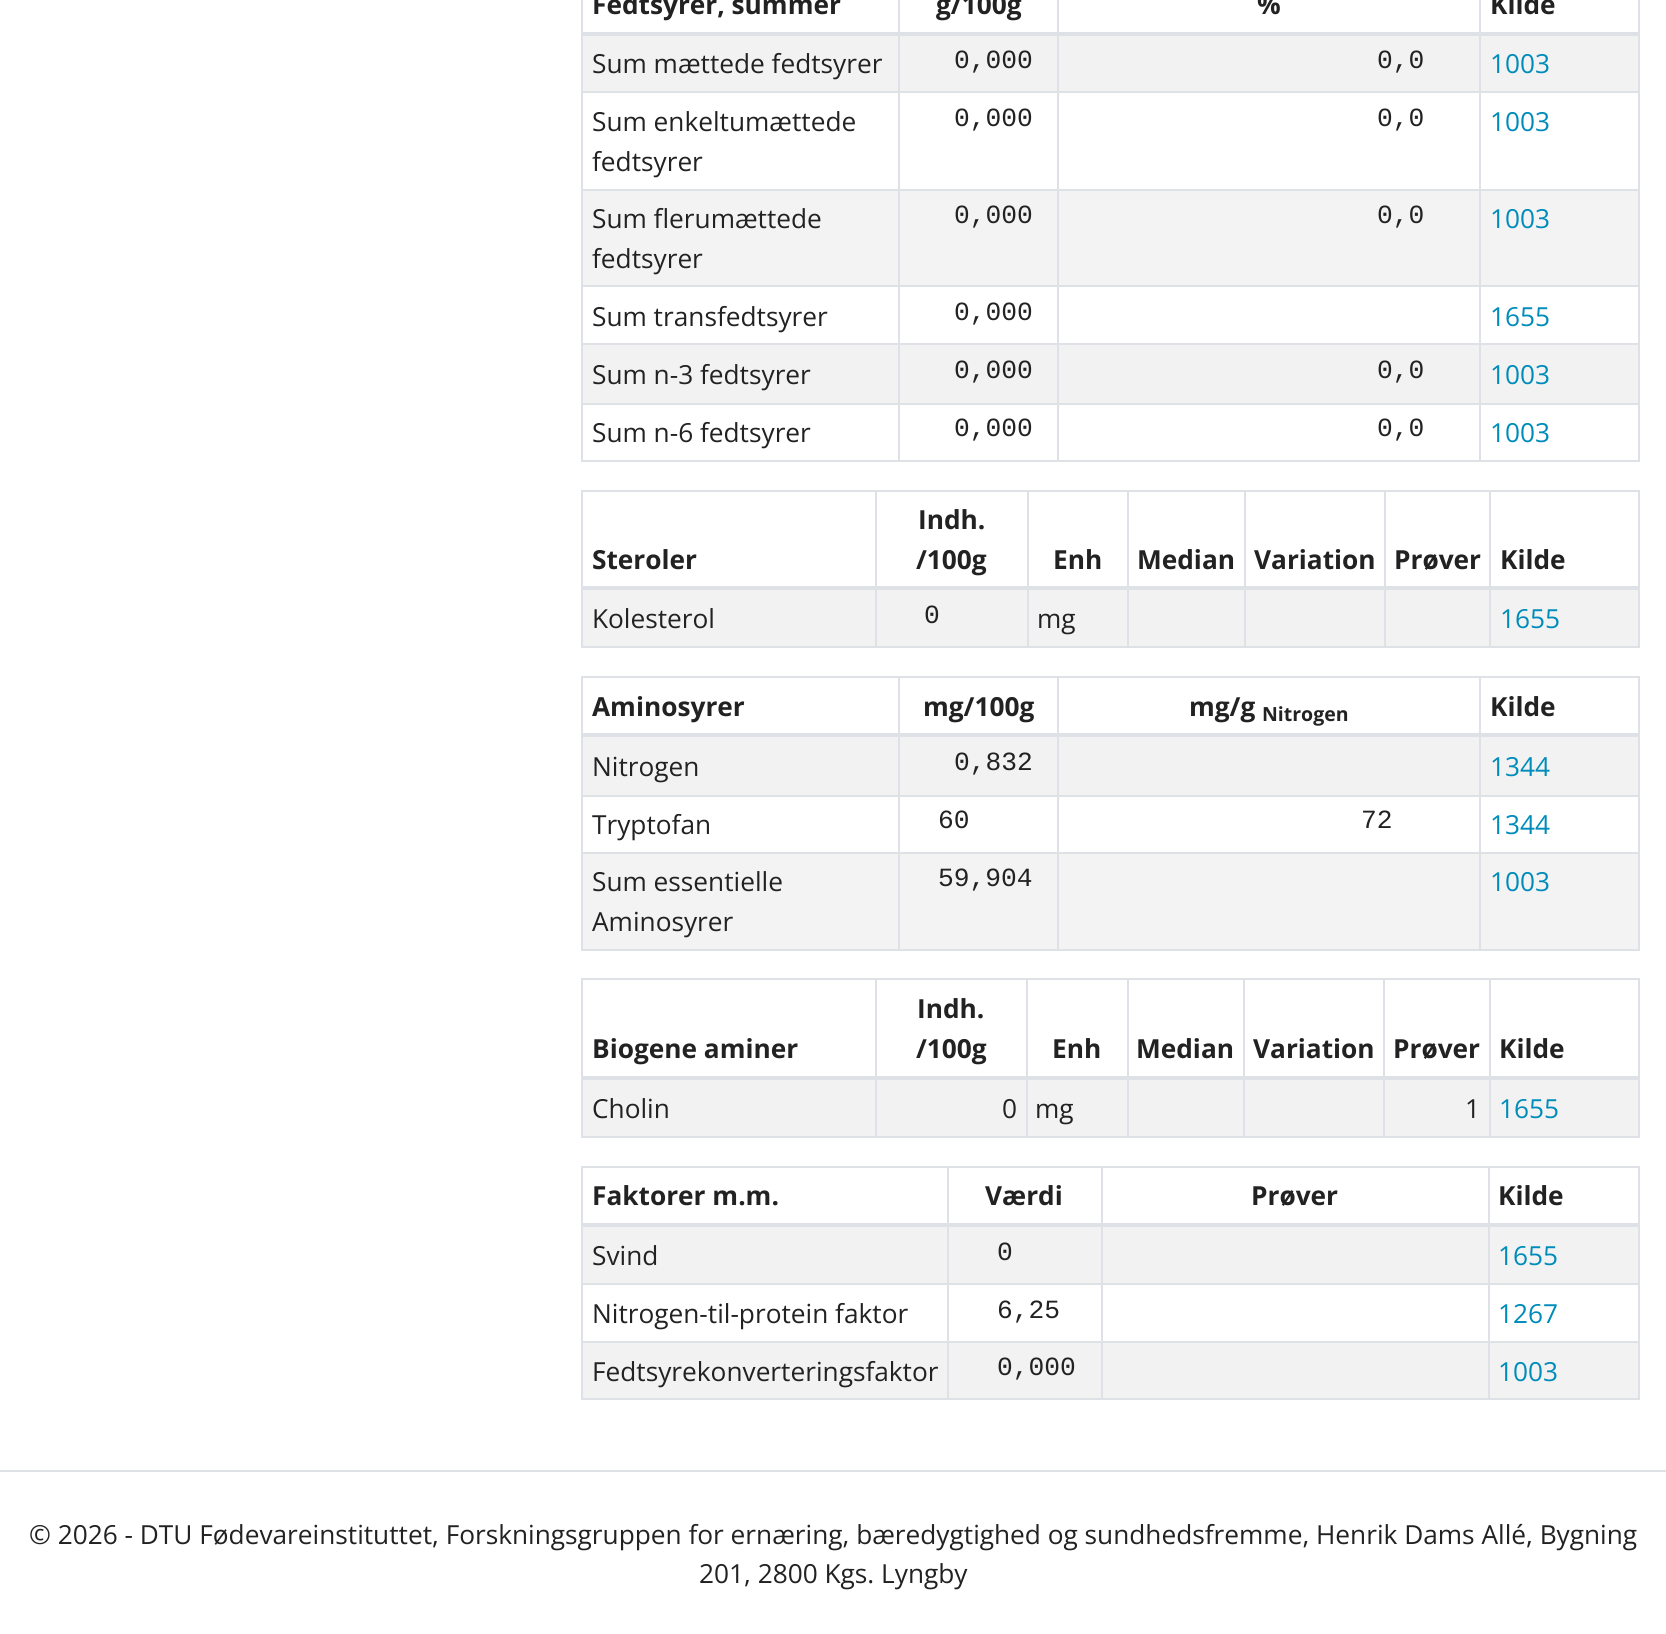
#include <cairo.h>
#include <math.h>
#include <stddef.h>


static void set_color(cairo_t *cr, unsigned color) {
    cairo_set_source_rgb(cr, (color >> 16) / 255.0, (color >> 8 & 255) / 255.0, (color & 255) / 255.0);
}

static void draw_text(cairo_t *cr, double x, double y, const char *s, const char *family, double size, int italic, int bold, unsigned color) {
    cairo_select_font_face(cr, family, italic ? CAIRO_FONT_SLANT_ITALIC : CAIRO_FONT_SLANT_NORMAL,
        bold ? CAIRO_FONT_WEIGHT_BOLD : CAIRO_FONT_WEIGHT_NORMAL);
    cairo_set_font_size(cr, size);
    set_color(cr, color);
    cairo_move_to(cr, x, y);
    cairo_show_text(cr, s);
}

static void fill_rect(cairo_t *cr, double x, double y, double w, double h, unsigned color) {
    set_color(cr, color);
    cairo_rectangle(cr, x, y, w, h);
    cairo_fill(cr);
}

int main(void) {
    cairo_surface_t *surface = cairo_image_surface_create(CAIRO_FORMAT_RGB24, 1666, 1634);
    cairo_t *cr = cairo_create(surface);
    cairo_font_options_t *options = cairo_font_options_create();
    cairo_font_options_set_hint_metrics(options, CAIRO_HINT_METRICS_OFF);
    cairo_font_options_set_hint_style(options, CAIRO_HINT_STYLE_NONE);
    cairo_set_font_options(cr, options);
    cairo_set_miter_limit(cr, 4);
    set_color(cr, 0xFFFFFF);
    cairo_paint(cr);
    fill_rect(cr, 1638, 0, 2, 462, 0xDEE2E6);
    fill_rect(cr, 581, 460, 1059, 2, 0xDEE2E6);
    fill_rect(cr, 581, 0, 2, 462, 0xDEE2E6);
    draw_text(cr, 592, 14, "Fedtsyrer, summer", "Open Sans", 26.25, 0, 1, 0x222222);
    draw_text(cr, 936, 14, "g/100g", "Open Sans", 26.25, 0, 1, 0x222222);
    draw_text(cr, 1257, 14, "%", "Open Sans", 26.25, 0, 1, 0x222222);
    fill_rect(cr, 583, 36, 1055, 55, 0xF2F2F2);
    fill_rect(cr, 1479, 91, 161, 2, 0xDEE2E6);
    fill_rect(cr, 1479, 189, 161, 2, 0xDEE2E6);
    fill_rect(cr, 583, 191, 1055, 94, 0xF3F3F3);
    fill_rect(cr, 1479, 285, 161, 2, 0xDEE2E6);
    fill_rect(cr, 1479, 343, 161, 2, 0xDEE2E6);
    fill_rect(cr, 583, 345, 1055, 58, 0xF2F2F2);
    fill_rect(cr, 1479, 403, 161, 2, 0xDEE2E6);
    fill_rect(cr, 1479, 403, 2, 59, 0xDEE2E6);
    fill_rect(cr, 1057, 403, 424, 2, 0xDEE2E6);
    fill_rect(cr, 1479, 343, 2, 61, 0xDEE2E6);
    fill_rect(cr, 1057, 343, 424, 2, 0xDEE2E6);
    fill_rect(cr, 1479, 285, 2, 60, 0xDEE2E6);
    fill_rect(cr, 1057, 285, 424, 2, 0xDEE2E6);
    fill_rect(cr, 1479, 189, 2, 98, 0xDEE2E6);
    fill_rect(cr, 1057, 189, 424, 2, 0xDEE2E6);
    fill_rect(cr, 1479, 91, 2, 100, 0xDEE2E6);
    fill_rect(cr, 1057, 91, 424, 2, 0xDEE2E6);
    fill_rect(cr, 1057, 403, 2, 59, 0xDEE2E6);
    fill_rect(cr, 898, 403, 161, 2, 0xDEE2E6);
    fill_rect(cr, 1057, 343, 2, 61, 0xDEE2E6);
    fill_rect(cr, 898, 343, 161, 2, 0xDEE2E6);
    fill_rect(cr, 1057, 285, 2, 60, 0xDEE2E6);
    fill_rect(cr, 898, 285, 161, 2, 0xDEE2E6);
    fill_rect(cr, 1057, 189, 2, 98, 0xDEE2E6);
    fill_rect(cr, 898, 189, 161, 2, 0xDEE2E6);
    fill_rect(cr, 1057, 91, 2, 100, 0xDEE2E6);
    fill_rect(cr, 898, 91, 161, 2, 0xDEE2E6);
    fill_rect(cr, 898, 403, 2, 59, 0xDEE2E6);
    fill_rect(cr, 581, 403, 319, 2, 0xDEE2E6);
    fill_rect(cr, 898, 343, 2, 61, 0xDEE2E6);
    fill_rect(cr, 581, 343, 319, 2, 0xDEE2E6);
    fill_rect(cr, 898, 285, 2, 60, 0xDEE2E6);
    fill_rect(cr, 581, 285, 319, 2, 0xDEE2E6);
    fill_rect(cr, 898, 189, 2, 98, 0xDEE2E6);
    fill_rect(cr, 581, 189, 319, 2, 0xDEE2E6);
    fill_rect(cr, 898, 91, 2, 100, 0xDEE2E6);
    fill_rect(cr, 581, 91, 319, 2, 0xDEE2E6);
    fill_rect(cr, 898, 0, 2, 93, 0xDEE2E6);
    fill_rect(cr, 1057, 0, 2, 93, 0xDEE2E6);
    fill_rect(cr, 1479, 0, 2, 93, 0xDEE2E6);
    fill_rect(cr, 581, 32, 1059, 4, 0xDEE2E6);
    draw_text(cr, 1490, 14, "Kilde", "Open Sans", 26.25, 0, 1, 0x222222);
    draw_text(cr, 592, 73, "Sum mættede fedtsyrer", "Open Sans", 26.25, 0, 0, 0x222222);
    draw_text(cr, 954, 68, "0,000", "Liberation Mono", 26.25, 0, 0, 0x222222);
    draw_text(cr, 1377, 68, "0,0", "Liberation Mono", 26.25, 0, 0, 0x222222);
    draw_text(cr, 1490, 73, "1003", "Open Sans", 26.25, 0, 0, 0x008CBA);
    draw_text(cr, 592, 131, "Sum enkeltumættede", "Open Sans", 26.25, 0, 0, 0x222222);
    draw_text(cr, 592, 171, "fedtsyrer", "Open Sans", 26.25, 0, 0, 0x222222);
    draw_text(cr, 954, 126, "0,000", "Liberation Mono", 26.25, 0, 0, 0x222222);
    draw_text(cr, 1377, 126, "0,0", "Liberation Mono", 26.25, 0, 0, 0x222222);
    draw_text(cr, 1490, 131, "1003", "Open Sans", 26.25, 0, 0, 0x008CBA);
    draw_text(cr, 592, 228, "Sum flerumættede", "Open Sans", 26.25, 0, 0, 0x222222);
    draw_text(cr, 592, 268, "fedtsyrer", "Open Sans", 26.25, 0, 0, 0x222222);
    draw_text(cr, 954, 223, "0,000", "Liberation Mono", 26.25, 0, 0, 0x222222);
    draw_text(cr, 1377, 223, "0,0", "Liberation Mono", 26.25, 0, 0, 0x222222);
    draw_text(cr, 1490, 228, "1003", "Open Sans", 26.25, 0, 0, 0x008CBA);
    draw_text(cr, 592, 326, "Sum transfedtsyrer", "Open Sans", 26.25, 0, 0, 0x222222);
    draw_text(cr, 954, 320, "0,000", "Liberation Mono", 26.25, 0, 0, 0x222222);
    draw_text(cr, 1490, 326, "1655", "Open Sans", 26.25, 0, 0, 0x008CBA);
    draw_text(cr, 592, 384, "Sum n-3 fedtsyrer", "Open Sans", 26.25, 0, 0, 0x222222);
    draw_text(cr, 954, 378, "0,000", "Liberation Mono", 26.25, 0, 0, 0x222222);
    draw_text(cr, 1377, 378, "0,0", "Liberation Mono", 26.25, 0, 0, 0x222222);
    draw_text(cr, 1490, 384, "1003", "Open Sans", 26.25, 0, 0, 0x008CBA);
    draw_text(cr, 592, 442, "Sum n-6 fedtsyrer", "Open Sans", 26.25, 0, 0, 0x222222);
    draw_text(cr, 954, 436, "0,000", "Liberation Mono", 26.25, 0, 0, 0x222222);
    draw_text(cr, 1377, 436, "0,0", "Liberation Mono", 26.25, 0, 0, 0x222222);
    draw_text(cr, 1490, 442, "1003", "Open Sans", 26.25, 0, 0, 0x008CBA);
    fill_rect(cr, 581, 490, 1059, 2, 0xDEE2E6);
    fill_rect(cr, 1638, 490, 2, 158, 0xDEE2E6);
    fill_rect(cr, 581, 646, 1059, 2, 0xDEE2E6);
    fill_rect(cr, 581, 490, 2, 158, 0xDEE2E6);
    draw_text(cr, 592, 569, "Steroler", "Open Sans", 26.25, 0, 1, 0x222222);
    draw_text(cr, 918, 529, "Indh.", "Open Sans", 26.25, 0, 1, 0x222222);
    draw_text(cr, 916, 569, "/100g", "Open Sans", 26.25, 0, 1, 0x222222);
    draw_text(cr, 1053, 569, "Enh", "Open Sans", 26.25, 0, 1, 0x222222);
    draw_text(cr, 1137, 569, "Median", "Open Sans", 26.25, 0, 1, 0x222222);
    draw_text(cr, 1254, 569, "Variation", "Open Sans", 26.25, 0, 1, 0x222222);
    draw_text(cr, 1394, 569, "Prøver", "Open Sans", 26.25, 0, 1, 0x222222);
    fill_rect(cr, 583, 590, 1055, 56, 0xF2F2F2);
    fill_rect(cr, 875, 490, 2, 158, 0xDEE2E6);
    fill_rect(cr, 1027, 490, 2, 158, 0xDEE2E6);
    fill_rect(cr, 1127, 490, 2, 158, 0xDEE2E6);
    fill_rect(cr, 1244, 490, 2, 158, 0xDEE2E6);
    fill_rect(cr, 1384, 490, 2, 158, 0xDEE2E6);
    fill_rect(cr, 1489, 490, 2, 158, 0xDEE2E6);
    fill_rect(cr, 581, 586, 1059, 4, 0xDEE2E6);
    draw_text(cr, 1500, 569, "Kilde", "Open Sans", 26.25, 0, 1, 0x222222);
    draw_text(cr, 592, 628, "Kolesterol", "Open Sans", 26.25, 0, 0, 0x222222);
    draw_text(cr, 924, 623, "0", "Liberation Mono", 26.25, 0, 0, 0x222222);
    draw_text(cr, 1037, 628, "mg", "Open Sans", 26.25, 0, 0, 0x222222);
    draw_text(cr, 1500, 628, "1655", "Open Sans", 26.25, 0, 0, 0x008CBA);
    fill_rect(cr, 581, 676, 1059, 2, 0xDEE2E6);
    fill_rect(cr, 1638, 676, 2, 274, 0xDEE2E6);
    fill_rect(cr, 581, 949, 1059, 2, 0xDEE2E6);
    fill_rect(cr, 581, 676, 2, 274, 0xDEE2E6);
    draw_text(cr, 592, 716, "Aminosyrer", "Open Sans", 26.25, 0, 1, 0x222222);
    draw_text(cr, 923, 716, "mg/100g", "Open Sans", 26.25, 0, 1, 0x222222);
    draw_text(cr, 1189, 716, "mg/g", "Open Sans", 26.25, 0, 1, 0x222222);
    draw_text(cr, 1262, 721, "Nitrogen", "Open Sans", 19.5, 0, 1, 0x222222);
    fill_rect(cr, 583, 737, 1055, 58, 0xF2F2F2);
    fill_rect(cr, 1479, 795, 161, 2, 0xDEE2E6);
    fill_rect(cr, 1479, 852, 161, 2, 0xDEE2E6);
    fill_rect(cr, 583, 854, 1055, 95, 0xF3F3F3);
    fill_rect(cr, 1479, 852, 2, 98, 0xDEE2E6);
    fill_rect(cr, 1057, 852, 424, 2, 0xDEE2E6);
    fill_rect(cr, 1479, 795, 2, 59, 0xDEE2E6);
    fill_rect(cr, 1057, 795, 424, 2, 0xDEE2E6);
    fill_rect(cr, 1057, 852, 2, 98, 0xDEE2E6);
    fill_rect(cr, 898, 852, 161, 2, 0xDEE2E6);
    fill_rect(cr, 1057, 795, 2, 59, 0xDEE2E6);
    fill_rect(cr, 898, 795, 161, 2, 0xDEE2E6);
    fill_rect(cr, 898, 852, 2, 98, 0xDEE2E6);
    fill_rect(cr, 581, 852, 319, 2, 0xDEE2E6);
    fill_rect(cr, 898, 795, 2, 59, 0xDEE2E6);
    fill_rect(cr, 581, 795, 319, 2, 0xDEE2E6);
    fill_rect(cr, 898, 676, 2, 120, 0xDEE2E6);
    fill_rect(cr, 1057, 676, 2, 120, 0xDEE2E6);
    fill_rect(cr, 1479, 676, 2, 120, 0xDEE2E6);
    fill_rect(cr, 581, 733, 1059, 4, 0xDEE2E6);
    draw_text(cr, 1490, 716, "Kilde", "Open Sans", 26.25, 0, 1, 0x222222);
    draw_text(cr, 592, 776, "Nitrogen", "Open Sans", 26.25, 0, 0, 0x222222);
    draw_text(cr, 954, 770, "0,832", "Liberation Mono", 26.25, 0, 0, 0x222222);
    draw_text(cr, 1490, 776, "1344", "Open Sans", 26.25, 0, 0, 0x008CBA);
    draw_text(cr, 592, 834, "Tryptofan", "Open Sans", 26.25, 0, 0, 0x222222);
    draw_text(cr, 938, 828, "60", "Liberation Mono", 26.25, 0, 0, 0x222222);
    draw_text(cr, 1361, 828, "72", "Liberation Mono", 26.25, 0, 0, 0x222222);
    draw_text(cr, 1490, 834, "1344", "Open Sans", 26.25, 0, 0, 0x008CBA);
    draw_text(cr, 592, 891, "Sum essentielle", "Open Sans", 26.25, 0, 0, 0x222222);
    draw_text(cr, 592, 931, "Aminosyrer", "Open Sans", 26.25, 0, 0, 0x222222);
    draw_text(cr, 938, 886, "59,904", "Liberation Mono", 26.25, 0, 0, 0x222222);
    draw_text(cr, 1490, 891, "1003", "Open Sans", 26.25, 0, 0, 0x008CBA);
    fill_rect(cr, 581, 978, 1059, 2, 0xDEE2E6);
    fill_rect(cr, 1638, 978, 2, 160, 0xDEE2E6);
    fill_rect(cr, 581, 1136, 1059, 2, 0xDEE2E6);
    fill_rect(cr, 581, 978, 2, 160, 0xDEE2E6);
    draw_text(cr, 592, 1058, "Biogene aminer", "Open Sans", 26.25, 0, 1, 0x222222);
    draw_text(cr, 917, 1018, "Indh.", "Open Sans", 26.25, 0, 1, 0x222222);
    draw_text(cr, 916, 1058, "/100g", "Open Sans", 26.25, 0, 1, 0x222222);
    draw_text(cr, 1052, 1058, "Enh", "Open Sans", 26.25, 0, 1, 0x222222);
    draw_text(cr, 1136, 1058, "Median", "Open Sans", 26.25, 0, 1, 0x222222);
    draw_text(cr, 1253, 1058, "Variation", "Open Sans", 26.25, 0, 1, 0x222222);
    draw_text(cr, 1393, 1058, "Prøver", "Open Sans", 26.25, 0, 1, 0x222222);
    fill_rect(cr, 583, 1080, 1055, 56, 0xF2F2F2);
    fill_rect(cr, 875, 978, 2, 160, 0xDEE2E6);
    fill_rect(cr, 1026, 978, 2, 160, 0xDEE2E6);
    fill_rect(cr, 1127, 978, 2, 160, 0xDEE2E6);
    fill_rect(cr, 1243, 978, 2, 160, 0xDEE2E6);
    fill_rect(cr, 1383, 978, 2, 160, 0xDEE2E6);
    fill_rect(cr, 1489, 978, 2, 160, 0xDEE2E6);
    fill_rect(cr, 581, 1076, 1059, 4, 0xDEE2E6);
    draw_text(cr, 1499, 1058, "Kilde", "Open Sans", 26.25, 0, 1, 0x222222);
    draw_text(cr, 592, 1118, "Cholin", "Open Sans", 26.25, 0, 0, 0x222222);
    draw_text(cr, 1002, 1118, "0", "Open Sans", 26.25, 0, 0, 0x222222);
    draw_text(cr, 1035, 1118, "mg", "Open Sans", 26.25, 0, 0, 0x222222);
    draw_text(cr, 1465, 1118, "1", "Open Sans", 26.25, 0, 0, 0x222222);
    draw_text(cr, 1499, 1118, "1655", "Open Sans", 26.25, 0, 0, 0x008CBA);
    fill_rect(cr, 581, 1166, 1059, 2, 0xDEE2E6);
    fill_rect(cr, 1638, 1166, 2, 234, 0xDEE2E6);
    fill_rect(cr, 581, 1398, 1059, 2, 0xDEE2E6);
    fill_rect(cr, 581, 1166, 2, 234, 0xDEE2E6);
    draw_text(cr, 592, 1205, "Faktorer m.m.", "Open Sans", 26.25, 0, 1, 0x222222);
    draw_text(cr, 985, 1205, "Værdi", "Open Sans", 26.25, 0, 1, 0x222222);
    draw_text(cr, 1251, 1205, "Prøver", "Open Sans", 26.25, 0, 1, 0x222222);
    fill_rect(cr, 583, 1227, 1055, 56, 0xF2F2F2);
    fill_rect(cr, 1488, 1283, 152, 2, 0xDEE2E6);
    fill_rect(cr, 1488, 1341, 152, 2, 0xDEE2E6);
    fill_rect(cr, 583, 1343, 1055, 55, 0xF2F2F2);
    fill_rect(cr, 1488, 1341, 2, 59, 0xDEE2E6);
    fill_rect(cr, 1101, 1341, 388, 2, 0xDEE2E6);
    fill_rect(cr, 1488, 1283, 2, 59, 0xDEE2E6);
    fill_rect(cr, 1101, 1283, 388, 2, 0xDEE2E6);
    fill_rect(cr, 1101, 1341, 2, 59, 0xDEE2E6);
    fill_rect(cr, 947, 1341, 156, 2, 0xDEE2E6);
    fill_rect(cr, 1101, 1283, 2, 59, 0xDEE2E6);
    fill_rect(cr, 947, 1283, 156, 2, 0xDEE2E6);
    fill_rect(cr, 947, 1341, 2, 59, 0xDEE2E6);
    fill_rect(cr, 581, 1341, 368, 2, 0xDEE2E6);
    fill_rect(cr, 947, 1283, 2, 59, 0xDEE2E6);
    fill_rect(cr, 581, 1283, 368, 2, 0xDEE2E6);
    fill_rect(cr, 947, 1166, 2, 119, 0xDEE2E6);
    fill_rect(cr, 1101, 1166, 2, 119, 0xDEE2E6);
    fill_rect(cr, 1488, 1166, 2, 119, 0xDEE2E6);
    fill_rect(cr, 581, 1223, 1059, 4, 0xDEE2E6);
    draw_text(cr, 1498, 1205, "Kilde", "Open Sans", 26.25, 0, 1, 0x222222);
    draw_text(cr, 592, 1265, "Svind", "Open Sans", 26.25, 0, 0, 0x222222);
    draw_text(cr, 997, 1260, "0", "Liberation Mono", 26.25, 0, 0, 0x222222);
    draw_text(cr, 1498, 1265, "1655", "Open Sans", 26.25, 0, 0, 0x008CBA);
    draw_text(cr, 592, 1323, "Nitrogen-til-protein faktor", "Open Sans", 26.25, 0, 0, 0x222222);
    draw_text(cr, 997, 1318, "6,25", "Liberation Mono", 26.25, 0, 0, 0x222222);
    draw_text(cr, 1498, 1323, "1267", "Open Sans", 26.25, 0, 0, 0x008CBA);
    draw_text(cr, 592, 1381, "Fedtsyrekonverteringsfaktor", "Open Sans", 26.25, 0, 0, 0x222222);
    draw_text(cr, 997, 1375, "0,000", "Liberation Mono", 26.25, 0, 0, 0x222222);
    draw_text(cr, 1498, 1381, "1003", "Open Sans", 26.25, 0, 0, 0x008CBA);
    fill_rect(cr, 0, 1470, 1666, 2, 0xDEE2E6);
    draw_text(cr, 29, 1544, "© 2026 - DTU Fødevareinstituttet, Forskningsgruppen for ernæring, bæredygtighed og sundhedsfremme, Henrik Dams Allé, Bygning", "Open Sans", 26.25, 0, 0, 0x222222);
    draw_text(cr, 699, 1583, "201, 2800 Kgs. Lyngby", "Open Sans", 26.25, 0, 0, 0x222222);
    cairo_surface_write_to_png(surface, "output.png");
    cairo_font_options_destroy(options);
    cairo_destroy(cr);
    cairo_surface_destroy(surface);
    return 0;
}
